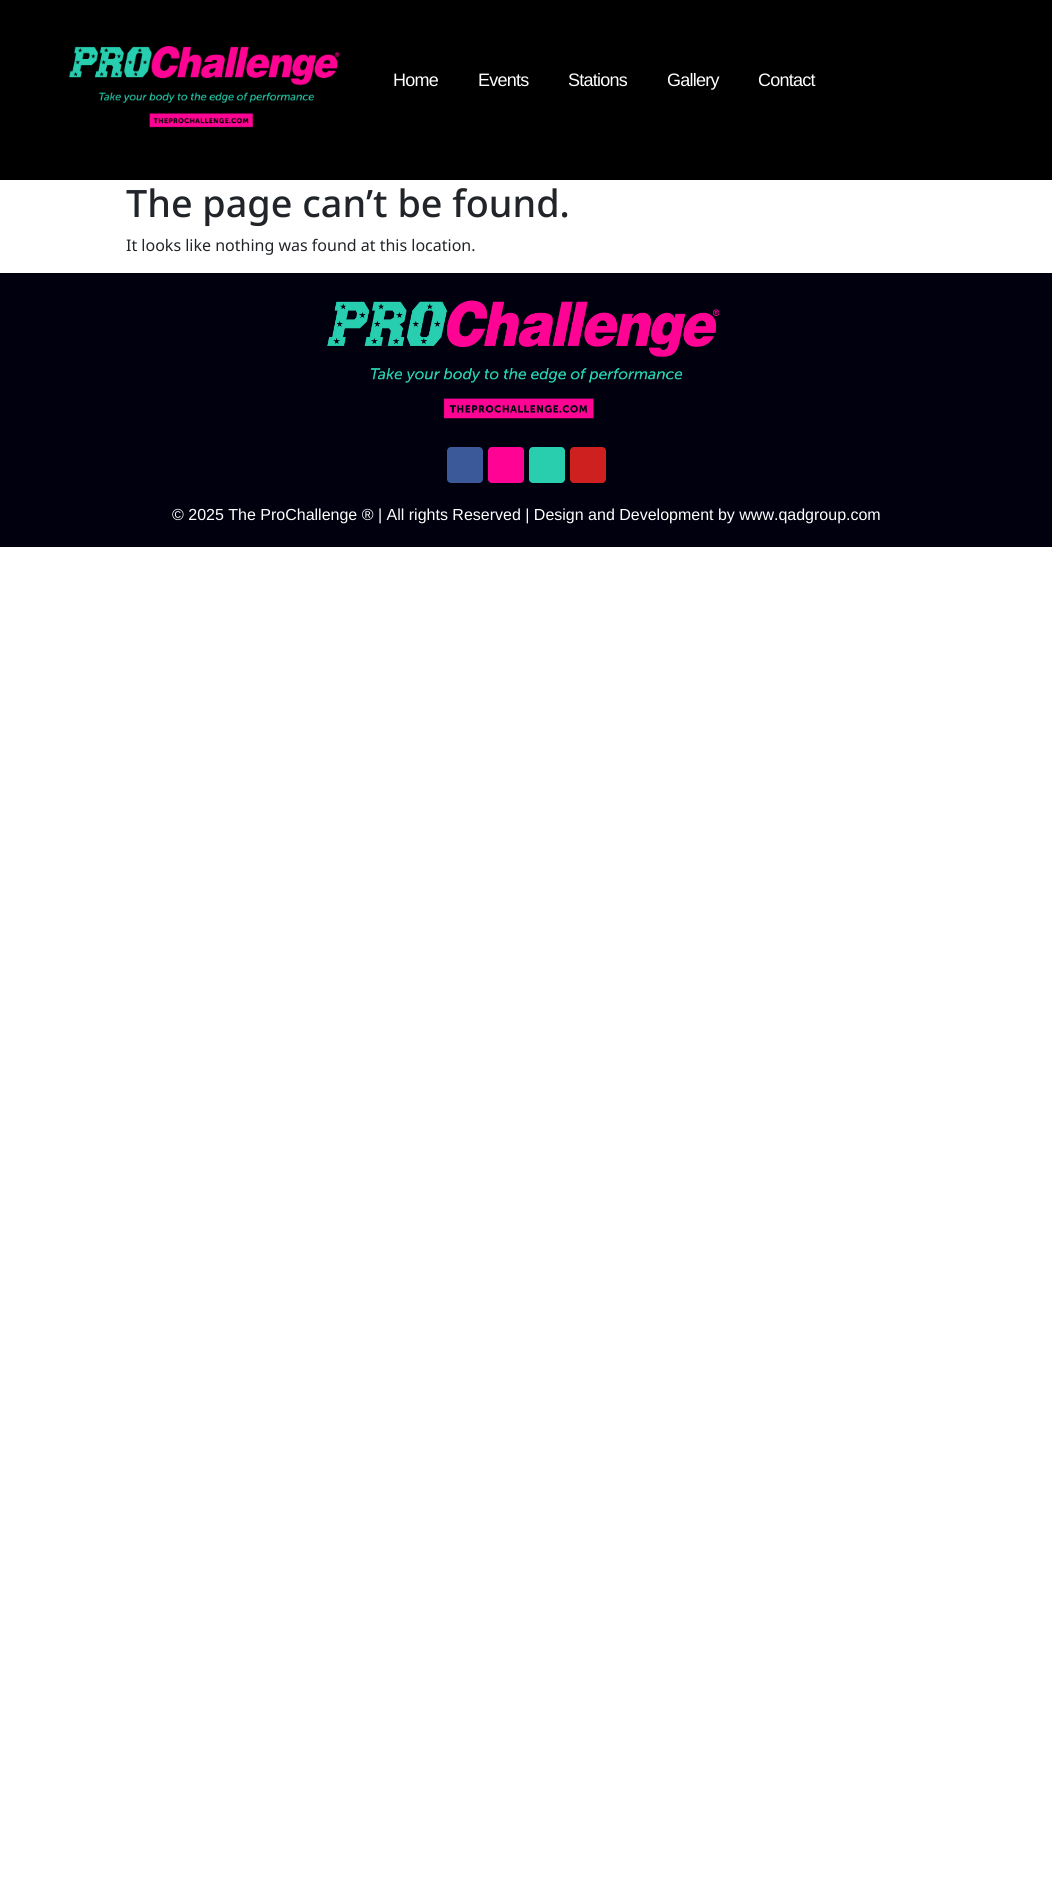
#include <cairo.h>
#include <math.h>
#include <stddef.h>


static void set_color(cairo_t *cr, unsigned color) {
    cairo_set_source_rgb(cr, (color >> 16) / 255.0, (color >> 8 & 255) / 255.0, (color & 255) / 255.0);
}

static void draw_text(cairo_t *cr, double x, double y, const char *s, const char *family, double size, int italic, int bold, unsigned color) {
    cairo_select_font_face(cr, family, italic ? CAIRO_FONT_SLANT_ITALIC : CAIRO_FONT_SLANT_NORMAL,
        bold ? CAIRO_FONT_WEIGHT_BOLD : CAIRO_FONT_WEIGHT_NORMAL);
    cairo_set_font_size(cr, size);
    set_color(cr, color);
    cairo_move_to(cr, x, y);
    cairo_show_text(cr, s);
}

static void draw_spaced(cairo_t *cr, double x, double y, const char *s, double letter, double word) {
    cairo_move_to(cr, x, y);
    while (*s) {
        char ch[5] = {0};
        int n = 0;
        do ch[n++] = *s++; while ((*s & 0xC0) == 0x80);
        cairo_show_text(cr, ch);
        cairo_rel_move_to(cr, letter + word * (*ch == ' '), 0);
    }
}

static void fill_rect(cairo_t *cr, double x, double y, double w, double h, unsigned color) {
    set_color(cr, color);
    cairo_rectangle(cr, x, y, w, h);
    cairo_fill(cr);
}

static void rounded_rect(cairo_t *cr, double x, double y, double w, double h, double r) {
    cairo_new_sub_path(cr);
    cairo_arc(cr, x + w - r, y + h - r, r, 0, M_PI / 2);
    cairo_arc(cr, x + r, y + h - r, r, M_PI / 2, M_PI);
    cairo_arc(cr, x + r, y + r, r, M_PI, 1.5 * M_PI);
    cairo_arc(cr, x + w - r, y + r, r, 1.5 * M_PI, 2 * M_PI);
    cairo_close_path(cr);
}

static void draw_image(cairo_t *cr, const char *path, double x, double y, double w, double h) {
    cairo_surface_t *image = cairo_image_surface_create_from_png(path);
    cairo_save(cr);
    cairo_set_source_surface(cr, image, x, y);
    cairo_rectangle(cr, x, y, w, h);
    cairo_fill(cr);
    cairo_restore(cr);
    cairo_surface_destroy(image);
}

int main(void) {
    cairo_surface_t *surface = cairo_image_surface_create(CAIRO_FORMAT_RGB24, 1052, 1879);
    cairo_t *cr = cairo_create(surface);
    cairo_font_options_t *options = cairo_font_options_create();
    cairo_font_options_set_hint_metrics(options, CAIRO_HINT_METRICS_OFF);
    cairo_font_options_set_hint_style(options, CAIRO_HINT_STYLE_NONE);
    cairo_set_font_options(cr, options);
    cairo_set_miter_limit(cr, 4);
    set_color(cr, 0xFFFFFF);
    cairo_paint(cr);
    fill_rect(cr, 0, 0, 1052, 180, 0x000000);
    draw_image(cr, "assets/img1.png", 69, 45, 271, 83);
    cairo_select_font_face(cr, "Liberation Sans", CAIRO_FONT_SLANT_NORMAL, CAIRO_FONT_WEIGHT_NORMAL);
    cairo_set_font_size(cr, 18);
    set_color(cr, 0xFFFFFF);
    draw_spaced(cr, 393, 86, "Home", -0.75, 0);
    draw_spaced(cr, 478, 86, "Events", -0.75, 0);
    draw_spaced(cr, 568, 86, "Stations", -0.75, 0);
    draw_spaced(cr, 667, 86, "Gallery", -0.75, 0);
    draw_spaced(cr, 758, 86, "Contact", -0.75, 0);
    draw_text(cr, 126, 217, "The page can’t be found.", "Noto Sans Medium", 37.75, 0, 0, 0x212529);
    draw_text(cr, 126, 251, "It looks like nothing was found at this location.", "Noto Sans", 16, 0, 0, 0x212529);
    fill_rect(cr, 0, 273, 1052, 274, 0x00000E);
    draw_image(cr, "assets/img2.png", 327, 300, 393, 119);
    set_color(cr, 0x3B5998);
    rounded_rect(cr, 447, 447, 36, 36, 4);
    cairo_fill(cr);
    set_color(cr, 0xFF0494);
    rounded_rect(cr, 488, 447, 36, 36, 4);
    cairo_fill(cr);
    set_color(cr, 0x28CEAE);
    rounded_rect(cr, 529, 447, 36, 36, 4);
    cairo_fill(cr);
    set_color(cr, 0xCD201F);
    rounded_rect(cr, 570, 447, 36, 36, 4);
    cairo_fill(cr);
    draw_text(cr, 172, 520, "© 2025 The ProChallenge ® | All rights Reserved | Design and Development by www.qadgroup.com", "Liberation Sans", 16, 0, 0, 0xFFFFFF);
    cairo_surface_write_to_png(surface, "output.png");
    cairo_font_options_destroy(options);
    cairo_destroy(cr);
    cairo_surface_destroy(surface);
    return 0;
}
